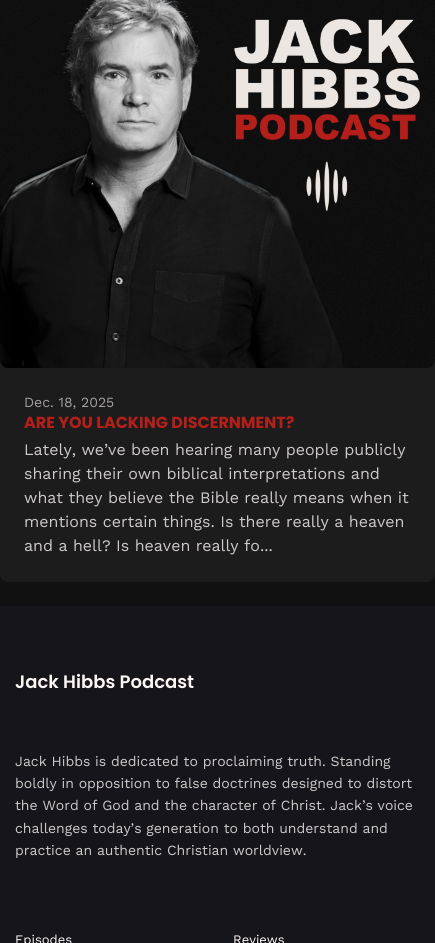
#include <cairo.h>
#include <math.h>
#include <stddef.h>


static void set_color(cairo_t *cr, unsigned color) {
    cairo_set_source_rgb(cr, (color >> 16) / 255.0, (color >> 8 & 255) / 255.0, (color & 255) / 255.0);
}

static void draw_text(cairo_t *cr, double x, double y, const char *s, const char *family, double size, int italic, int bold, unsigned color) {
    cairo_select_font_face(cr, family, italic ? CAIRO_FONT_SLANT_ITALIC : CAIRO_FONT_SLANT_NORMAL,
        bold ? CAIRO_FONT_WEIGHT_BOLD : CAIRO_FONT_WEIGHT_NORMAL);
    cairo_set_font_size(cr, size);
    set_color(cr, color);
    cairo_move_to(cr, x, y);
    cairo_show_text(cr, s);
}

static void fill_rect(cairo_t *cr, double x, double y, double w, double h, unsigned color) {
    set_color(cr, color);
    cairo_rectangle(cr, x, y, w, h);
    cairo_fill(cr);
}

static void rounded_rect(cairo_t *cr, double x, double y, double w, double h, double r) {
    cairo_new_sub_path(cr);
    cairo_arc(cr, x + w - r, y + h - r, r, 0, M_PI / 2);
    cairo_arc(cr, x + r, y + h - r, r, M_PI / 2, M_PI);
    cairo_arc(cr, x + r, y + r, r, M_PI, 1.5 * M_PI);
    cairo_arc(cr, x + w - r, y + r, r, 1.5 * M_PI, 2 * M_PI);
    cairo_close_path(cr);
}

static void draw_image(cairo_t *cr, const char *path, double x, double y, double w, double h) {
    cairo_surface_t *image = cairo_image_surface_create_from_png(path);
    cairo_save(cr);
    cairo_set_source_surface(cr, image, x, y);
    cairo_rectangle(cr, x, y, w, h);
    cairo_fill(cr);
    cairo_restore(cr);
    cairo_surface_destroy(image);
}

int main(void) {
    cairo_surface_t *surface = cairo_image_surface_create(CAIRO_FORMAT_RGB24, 435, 943);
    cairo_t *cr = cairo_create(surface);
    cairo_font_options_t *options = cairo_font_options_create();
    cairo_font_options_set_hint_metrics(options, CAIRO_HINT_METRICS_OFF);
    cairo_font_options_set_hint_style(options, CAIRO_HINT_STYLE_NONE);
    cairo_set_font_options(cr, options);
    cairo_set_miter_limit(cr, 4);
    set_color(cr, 0x16161A);
    cairo_paint(cr);
    fill_rect(cr, 0, 574, 435, 32, 0x111111);
    set_color(cr, 0x1C1C1C);
    rounded_rect(cr, 0, -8, 435, 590, 8);
    cairo_fill(cr);
    draw_image(cr, "assets/img1.png", 0, 0, 435, 368);
    draw_text(cr, 24, 407, "Dec. 18, 2025", "Work Sans", 14, 0, 0, 0xA29F9E);
    draw_text(cr, 24, 428, "ARE YOU LACKING DISCERNMENT?", "Poppins", 16, 0, 1, 0xB51F1A);
    draw_text(cr, 24, 455, "Lately, we’ve been hearing many people publicly", "Work Sans", 16, 0, 0, 0xCEC9C9);
    draw_text(cr, 24, 479, "sharing their own biblical interpretations and", "Work Sans", 16, 0, 0, 0xCEC9C9);
    draw_text(cr, 24, 503, "what they believe the Bible really means when it", "Work Sans", 16, 0, 0, 0xCEC9C9);
    draw_text(cr, 24, 527, "mentions certain things. Is there really a heaven", "Work Sans", 16, 0, 0, 0xCEC9C9);
    draw_text(cr, 24, 551, "and a hell? Is heaven really fo...", "Work Sans", 16, 0, 0, 0xCEC9C9);
    draw_text(cr, 15, 688, "Jack Hibbs Podcast", "Poppins SemiBold", 18, 0, 0, 0xFCF6F5);
    draw_text(cr, 15, 766, "Jack Hibbs is dedicated to proclaiming truth. Standing", "Work Sans", 14, 0, 0, 0xCEC9C9);
    draw_text(cr, 15, 788, "boldly in opposition to false doctrines designed to distort", "Work Sans", 14, 0, 0, 0xCEC9C9);
    draw_text(cr, 15, 810, "the Word of God and the character of Christ. Jack’s voice", "Work Sans", 14, 0, 0, 0xCEC9C9);
    draw_text(cr, 15, 833, "challenges today’s generation to both understand and", "Work Sans", 14, 0, 0, 0xCEC9C9);
    draw_text(cr, 15, 855, "practice an authentic Christian worldview.", "Work Sans", 14, 0, 0, 0xCEC9C9);
    draw_text(cr, 15, 944, "Episodes", "Work Sans", 13, 0, 0, 0xFCF6F5);
    draw_text(cr, 233, 944, "Reviews", "Work Sans", 13, 0, 0, 0xFCF6F5);
    cairo_surface_write_to_png(surface, "output.png");
    cairo_font_options_destroy(options);
    cairo_destroy(cr);
    cairo_surface_destroy(surface);
    return 0;
}
